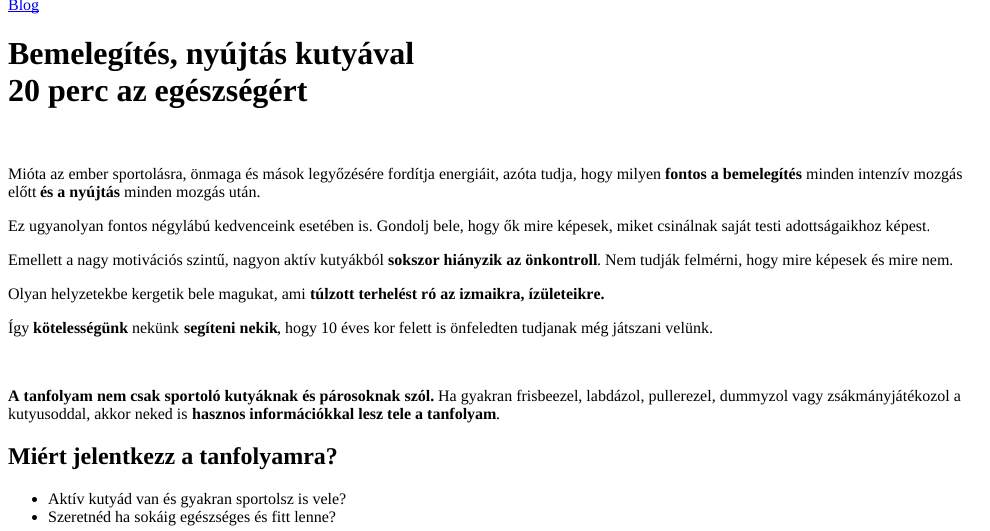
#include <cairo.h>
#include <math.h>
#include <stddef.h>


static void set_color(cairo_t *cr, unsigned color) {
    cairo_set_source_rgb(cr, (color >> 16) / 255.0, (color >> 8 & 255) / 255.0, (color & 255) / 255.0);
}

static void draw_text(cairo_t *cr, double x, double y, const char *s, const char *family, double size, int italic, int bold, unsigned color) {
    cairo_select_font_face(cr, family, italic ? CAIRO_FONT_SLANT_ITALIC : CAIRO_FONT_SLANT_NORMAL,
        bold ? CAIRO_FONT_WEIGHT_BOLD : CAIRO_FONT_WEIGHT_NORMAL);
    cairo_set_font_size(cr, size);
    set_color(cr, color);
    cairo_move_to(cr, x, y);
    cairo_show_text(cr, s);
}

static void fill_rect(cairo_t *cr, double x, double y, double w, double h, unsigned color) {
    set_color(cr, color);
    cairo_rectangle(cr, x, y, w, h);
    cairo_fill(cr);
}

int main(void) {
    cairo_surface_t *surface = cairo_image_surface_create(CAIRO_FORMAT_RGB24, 990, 531);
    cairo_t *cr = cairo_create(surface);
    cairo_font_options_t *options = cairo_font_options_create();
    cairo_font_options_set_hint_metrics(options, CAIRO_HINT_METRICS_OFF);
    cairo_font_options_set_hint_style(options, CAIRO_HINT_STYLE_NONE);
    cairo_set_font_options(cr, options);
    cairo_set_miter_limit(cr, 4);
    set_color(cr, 0xFFFFFF);
    cairo_paint(cr);
    fill_rect(cr, 8, 11, 31, 1, 0x0000EE);
    draw_text(cr, 8, 10, "Blog", "Liberation Serif", 16, 0, 0, 0x0000EE);
    draw_text(cr, 8, 64, "Bemelegítés, nyújtás kutyával", "Liberation Serif", 32, 0, 1, 0x000000);
    draw_text(cr, 8, 101, "20 perc az egészségért", "Liberation Serif", 32, 0, 1, 0x000000);
    draw_text(cr, 8, 179, "Mióta az ember sportolásra, önmaga és mások legyőzésére fordítja energiáit, azóta tudja, hogy milyen", "Liberation Serif", 16, 0, 0, 0x000000);
    draw_text(cr, 665, 179, "fontos a bemelegítés", "Liberation Serif", 16, 0, 1, 0x000000);
    draw_text(cr, 806, 179, "minden intenzív mozgás", "Liberation Serif", 16, 0, 0, 0x000000);
    draw_text(cr, 8, 197, "előtt", "Liberation Serif", 16, 0, 0, 0x000000);
    draw_text(cr, 40, 197, "és a nyújtás", "Liberation Serif", 16, 0, 1, 0x000000);
    draw_text(cr, 124, 197, "minden mozgás után.", "Liberation Serif", 16, 0, 0, 0x000000);
    draw_text(cr, 8, 231, "Ez ugyanolyan fontos négylábú kedvenceink esetében is. Gondolj bele, hogy ők mire képesek, miket csinálnak saját testi adottságaikhoz képest.", "Liberation Serif", 16, 0, 0, 0x000000);
    draw_text(cr, 8, 265, "Emellett a nagy motivációs szintű, nagyon aktív kutyákból", "Liberation Serif", 16, 0, 0, 0x000000);
    draw_text(cr, 388, 265, "sokszor hiányzik az önkontroll", "Liberation Serif", 16, 0, 1, 0x000000);
    draw_text(cr, 597, 265, ". Nem tudják felmérni, hogy mire képesek és mire nem.", "Liberation Serif", 16, 0, 0, 0x000000);
    draw_text(cr, 8, 299, "Olyan helyzetekbe kergetik bele magukat, ami", "Liberation Serif", 16, 0, 0, 0x000000);
    draw_text(cr, 310, 299, "túlzott terhelést ró az izmaikra, ízületeikre.", "Liberation Serif", 16, 0, 1, 0x000000);
    draw_text(cr, 8, 333, "Így", "Liberation Serif", 16, 0, 0, 0x000000);
    draw_text(cr, 33, 333, "kötelességünk", "Liberation Serif", 16, 0, 1, 0x000000);
    draw_text(cr, 132, 333, "nekünk", "Liberation Serif", 16, 0, 0, 0x000000);
    draw_text(cr, 184, 333, "segíteni nekik", "Liberation Serif", 16, 0, 1, 0x000000);
    draw_text(cr, 277, 333, ", hogy 10 éves kor felett is önfeledten tudjanak még játszani velünk.", "Liberation Serif", 16, 0, 0, 0x000000);
    draw_text(cr, 8, 401, "A tanfolyam nem csak sportoló kutyáknak és párosoknak szól.", "Liberation Serif", 16, 0, 1, 0x000000);
    draw_text(cr, 438, 401, "Ha gyakran frisbeezel, labdázol, pullerezel, dummyzol vagy zsákmányjátékozol a", "Liberation Serif", 16, 0, 0, 0x000000);
    draw_text(cr, 8, 419, "kutyusoddal, akkor neked is", "Liberation Serif", 16, 0, 0, 0x000000);
    draw_text(cr, 192, 419, "hasznos információkkal lesz tele a tanfolyam", "Liberation Serif", 16, 0, 1, 0x000000);
    draw_text(cr, 496, 419, ".", "Liberation Serif", 16, 0, 0, 0x000000);
    draw_text(cr, 8, 464, "Miért jelentkezz a tanfolyamra?", "Liberation Serif", 24, 0, 1, 0x000000);
    cairo_new_path(cr);
    cairo_arc(cr, 34.5, 499.5, 2.5, 0, 2 * M_PI);
    cairo_fill(cr);
    draw_text(cr, 48, 504, "Aktív kutyád van és gyakran sportolsz is vele?", "Liberation Serif", 16, 0, 0, 0x000000);
    cairo_new_path(cr);
    cairo_arc(cr, 34.5, 517.5, 2.5, 0, 2 * M_PI);
    cairo_fill(cr);
    draw_text(cr, 48, 522, "Szeretnéd ha sokáig egészséges és fitt lenne?", "Liberation Serif", 16, 0, 0, 0x000000);
    cairo_surface_write_to_png(surface, "output.png");
    cairo_font_options_destroy(options);
    cairo_destroy(cr);
    cairo_surface_destroy(surface);
    return 0;
}
